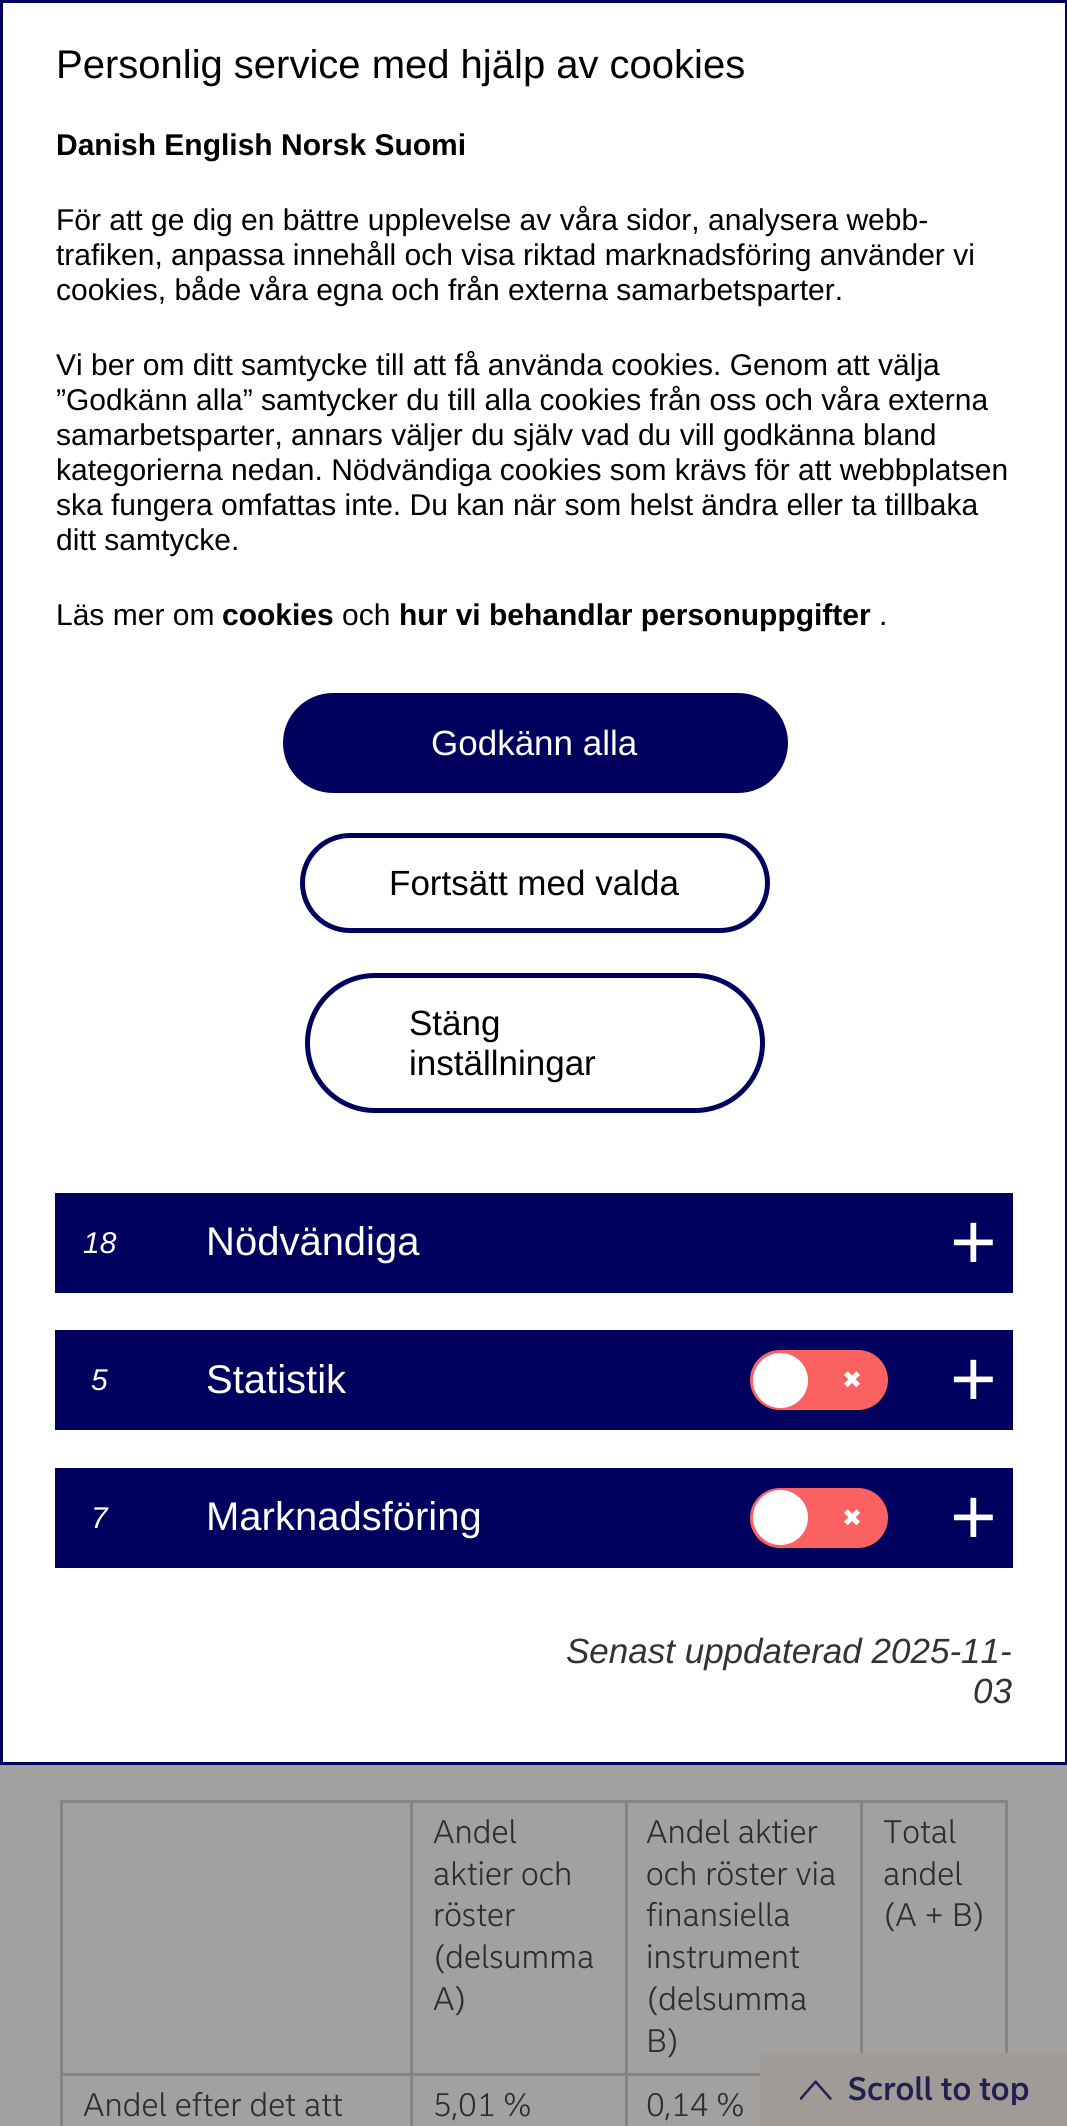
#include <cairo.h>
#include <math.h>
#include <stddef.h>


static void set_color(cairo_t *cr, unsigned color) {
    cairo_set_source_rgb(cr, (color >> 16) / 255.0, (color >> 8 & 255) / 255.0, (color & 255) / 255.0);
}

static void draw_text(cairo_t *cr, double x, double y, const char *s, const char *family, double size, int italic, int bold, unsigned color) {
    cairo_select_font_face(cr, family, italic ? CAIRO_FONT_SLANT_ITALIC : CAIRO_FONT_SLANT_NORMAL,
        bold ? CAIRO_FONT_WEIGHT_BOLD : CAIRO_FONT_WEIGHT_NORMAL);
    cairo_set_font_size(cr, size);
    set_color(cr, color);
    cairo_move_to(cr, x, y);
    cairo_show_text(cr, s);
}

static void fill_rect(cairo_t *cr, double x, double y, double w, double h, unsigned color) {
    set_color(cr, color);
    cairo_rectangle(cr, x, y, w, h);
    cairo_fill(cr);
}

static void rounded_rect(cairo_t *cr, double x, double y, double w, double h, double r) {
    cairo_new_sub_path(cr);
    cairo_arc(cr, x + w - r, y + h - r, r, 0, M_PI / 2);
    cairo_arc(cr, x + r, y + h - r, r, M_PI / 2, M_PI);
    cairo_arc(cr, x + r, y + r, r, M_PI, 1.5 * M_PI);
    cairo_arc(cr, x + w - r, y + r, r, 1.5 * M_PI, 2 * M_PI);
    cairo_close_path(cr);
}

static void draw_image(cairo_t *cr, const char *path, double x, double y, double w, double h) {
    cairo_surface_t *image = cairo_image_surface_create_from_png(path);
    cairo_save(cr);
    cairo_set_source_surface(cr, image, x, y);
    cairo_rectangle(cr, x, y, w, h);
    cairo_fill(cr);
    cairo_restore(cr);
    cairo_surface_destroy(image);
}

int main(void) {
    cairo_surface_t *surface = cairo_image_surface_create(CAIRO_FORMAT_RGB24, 1067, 2126);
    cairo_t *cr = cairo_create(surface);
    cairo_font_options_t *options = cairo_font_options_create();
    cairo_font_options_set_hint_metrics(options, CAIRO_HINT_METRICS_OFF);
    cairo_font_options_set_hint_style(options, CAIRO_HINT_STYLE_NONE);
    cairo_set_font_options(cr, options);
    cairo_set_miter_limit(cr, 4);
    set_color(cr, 0xA1A1A1);
    cairo_paint(cr);
    set_color(cr, 0xFFFFFF);
    cairo_rectangle(cr, 1.5, 1.5, 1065, 1762);
    cairo_fill_preserve(cr);
    set_color(cr, 0x00005E);
    cairo_set_line_width(cr, 3);
    cairo_stroke(cr);
    draw_text(cr, 56, 78, "Personlig service med hjälp av cookies", "Liberation Sans", 40, 0, 0, 0x000000);
    draw_text(cr, 56, 155, "Danish English Norsk Suomi", "Liberation Sans", 30, 0, 1, 0x000000);
    draw_text(cr, 56, 230, "För att ge dig en bättre upplevelse av våra sidor, analysera webb-", "Liberation Sans", 30, 0, 0, 0x000000);
    draw_text(cr, 56, 265, "trafiken, anpassa innehåll och visa riktad marknadsföring använder vi", "Liberation Sans", 30, 0, 0, 0x000000);
    draw_text(cr, 56, 300, "cookies, både våra egna och från externa samarbetsparter.", "Liberation Sans", 30, 0, 0, 0x000000);
    draw_text(cr, 56, 375, "Vi ber om ditt samtycke till att få använda cookies. Genom att välja", "Liberation Sans", 30, 0, 0, 0x000000);
    draw_text(cr, 56, 410, "”Godkänn alla” samtycker du till alla cookies från oss och våra externa", "Liberation Sans", 30, 0, 0, 0x000000);
    draw_text(cr, 56, 445, "samarbetsparter, annars väljer du själv vad du vill godkänna bland", "Liberation Sans", 30, 0, 0, 0x000000);
    draw_text(cr, 56, 480, "kategorierna nedan. Nödvändiga cookies som krävs för att webbplatsen", "Liberation Sans", 30, 0, 0, 0x000000);
    draw_text(cr, 56, 515, "ska fungera omfattas inte. Du kan när som helst ändra eller ta tillbaka", "Liberation Sans", 30, 0, 0, 0x000000);
    draw_text(cr, 56, 550, "ditt samtycke.", "Liberation Sans", 30, 0, 0, 0x000000);
    draw_text(cr, 56, 625, "Läs mer om", "Liberation Sans", 30, 0, 0, 0x000000);
    draw_text(cr, 222, 625, "cookies", "Liberation Sans", 30, 0, 1, 0x000000);
    draw_text(cr, 342, 625, "och", "Liberation Sans", 30, 0, 0, 0x000000);
    draw_text(cr, 399, 625, "hur vi behandlar personuppgifter", "Liberation Sans", 30, 0, 1, 0x000000);
    draw_text(cr, 879, 625, ".", "Liberation Sans", 30, 0, 0, 0x000000);
    set_color(cr, 0x00005E);
    rounded_rect(cr, 285.5, 695.5, 500, 95, 47.5);
    cairo_fill_preserve(cr);
    cairo_set_line_width(cr, 5);
    cairo_stroke(cr);
    draw_text(cr, 431, 755, "Godkänn alla", "Liberation Sans", 35, 0, 0, 0xFFFFFF);
    rounded_rect(cr, 302.5, 835.5, 465, 95, 47.5);
    set_color(cr, 0x00005E);
    cairo_stroke(cr);
    draw_text(cr, 389, 895, "Fortsätt med valda", "Liberation Sans", 35, 0, 0, 0x000000);
    rounded_rect(cr, 307.5, 975.5, 455, 135, 67.5);
    set_color(cr, 0x00005E);
    cairo_stroke(cr);
    draw_text(cr, 409, 1035, "Stäng", "Liberation Sans", 35, 0, 0, 0x000000);
    draw_text(cr, 409, 1075, "inställningar", "Liberation Sans", 35, 0, 0, 0x000000);
    fill_rect(cr, 55, 1193, 958, 100, 0x00005E);
    draw_text(cr, 83, 1253, "18", "Liberation Sans", 30, 1, 0, 0xFFFFFF);
    draw_text(cr, 206, 1255, "Nödvändiga", "Liberation Sans", 40, 0, 0, 0xFFFFFF);
    draw_text(cr, 950, 1269, "+", "Liberation Sans", 80, 0, 0, 0xFFFFFF);
    fill_rect(cr, 55, 1330, 958, 100, 0x00005E);
    draw_text(cr, 91, 1390, "5", "Liberation Sans", 30, 1, 0, 0xFFFFFF);
    draw_text(cr, 206, 1393, "Statistik", "Liberation Sans", 40, 0, 0, 0xFFFFFF);
    draw_text(cr, 950, 1406, "+", "Liberation Sans", 80, 0, 0, 0xFFFFFF);
    set_color(cr, 0xFC6161);
    rounded_rect(cr, 750, 1350, 138, 60, 30);
    cairo_fill(cr);
    set_color(cr, 0xFFFFFF);
    cairo_arc(cr, 780.5, 1380.5, 27.5, 0, 2 * M_PI);
    cairo_fill(cr);
    draw_text(cr, 842, 1388, "✖", "DejaVu Sans", 24, 0, 0, 0xFFFFFF);
    fill_rect(cr, 55, 1468, 958, 100, 0x00005E);
    draw_text(cr, 91, 1528, "7", "Liberation Sans", 30, 1, 0, 0xFFFFFF);
    draw_text(cr, 206, 1530, "Marknadsföring", "Liberation Sans", 40, 0, 0, 0xFFFFFF);
    draw_text(cr, 950, 1544, "+", "Liberation Sans", 80, 0, 0, 0xFFFFFF);
    set_color(cr, 0xFC6161);
    rounded_rect(cr, 750, 1488, 138, 60, 30);
    cairo_fill(cr);
    set_color(cr, 0xFFFFFF);
    cairo_arc(cr, 780.5, 1517.5, 27.5, 0, 2 * M_PI);
    cairo_fill(cr);
    draw_text(cr, 842, 1526, "✖", "DejaVu Sans", 24, 0, 0, 0xFFFFFF);
    draw_text(cr, 566, 1663, "Senast uppdaterad 2025-11-", "Liberation Sans", 35, 1, 0, 0x333333);
    draw_text(cr, 973, 1703, "03", "Liberation Sans", 35, 1, 0, 0x333333);
    cairo_rectangle(cr, 61.5, 1801.5, 945, 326);
    set_color(cr, 0x868585);
    cairo_set_line_width(cr, 3);
    cairo_stroke(cr);
    fill_rect(cr, 625, 2073, 135, 3, 0x868585);
    fill_rect(cr, 625, 2073, 3, 53, 0x868585);
    fill_rect(cr, 410, 2073, 218, 3, 0x868585);
    fill_rect(cr, 410, 2073, 3, 53, 0x868585);
    fill_rect(cr, 60, 2073, 353, 3, 0x868585);
    fill_rect(cr, 410, 1800, 3, 275, 0x868585);
    draw_text(cr, 433, 1843, "Andel", "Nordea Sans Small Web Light", 32.25, 0, 0, 0x2D2D2D);
    draw_text(cr, 433, 1885, "aktier och", "Nordea Sans Small Web Light", 32.25, 0, 0, 0x2D2D2D);
    draw_text(cr, 433, 1926, "röster", "Nordea Sans Small Web Light", 32.25, 0, 0, 0x2D2D2D);
    draw_text(cr, 433, 1968, "(delsumma", "Nordea Sans Small Web Light", 32.25, 0, 0, 0x2D2D2D);
    draw_text(cr, 433, 2010, "A)", "Nordea Sans Small Web Light", 32.25, 0, 0, 0x2D2D2D);
    fill_rect(cr, 625, 1800, 3, 275, 0x868585);
    draw_text(cr, 646, 1843, "Andel aktier", "Nordea Sans Small Web Light", 32.25, 0, 0, 0x2D2D2D);
    draw_text(cr, 646, 1885, "och röster via", "Nordea Sans Small Web Light", 32.25, 0, 0, 0x2D2D2D);
    draw_text(cr, 646, 1926, "finansiella", "Nordea Sans Small Web Light", 32.25, 0, 0, 0x2D2D2D);
    draw_text(cr, 646, 1968, "instrument", "Nordea Sans Small Web Light", 32.25, 0, 0, 0x2D2D2D);
    draw_text(cr, 646, 2010, "(delsumma", "Nordea Sans Small Web Light", 32.25, 0, 0, 0x2D2D2D);
    draw_text(cr, 646, 2052, "B)", "Nordea Sans Small Web Light", 32.25, 0, 0, 0x2D2D2D);
    fill_rect(cr, 860, 1800, 3, 253, 0x868585);
    draw_text(cr, 883, 1843, "Total", "Nordea Sans Small Web Light", 32.25, 0, 0, 0x2D2D2D);
    draw_text(cr, 883, 1885, "andel", "Nordea Sans Small Web Light", 32.25, 0, 0, 0x2D2D2D);
    draw_text(cr, 883, 1926, "(A + B)", "Nordea Sans Small Web Light", 32.25, 0, 0, 0x2D2D2D);
    draw_text(cr, 83, 2116, "Andel efter det att", "Nordea Sans Small Web Light", 32.25, 0, 0, 0x2D2D2D);
    draw_text(cr, 433, 2116, "5,01 %", "Nordea Sans Small Web Light", 32.25, 0, 0, 0x2D2D2D);
    draw_text(cr, 646, 2116, "0,14 %", "Nordea Sans Small Web Light", 32.25, 0, 0, 0x2D2D2D);
    fill_rect(cr, 760, 2053, 307, 73, 0xA19B98);
    draw_image(cr, "assets/img1.png", 800, 2080, 32, 20);
    draw_text(cr, 848, 2100, "Scroll to top", "Nordea Sans Small Web Medium", 32.25, 0, 0, 0x212150);
    cairo_surface_write_to_png(surface, "output.png");
    cairo_font_options_destroy(options);
    cairo_destroy(cr);
    cairo_surface_destroy(surface);
    return 0;
}
